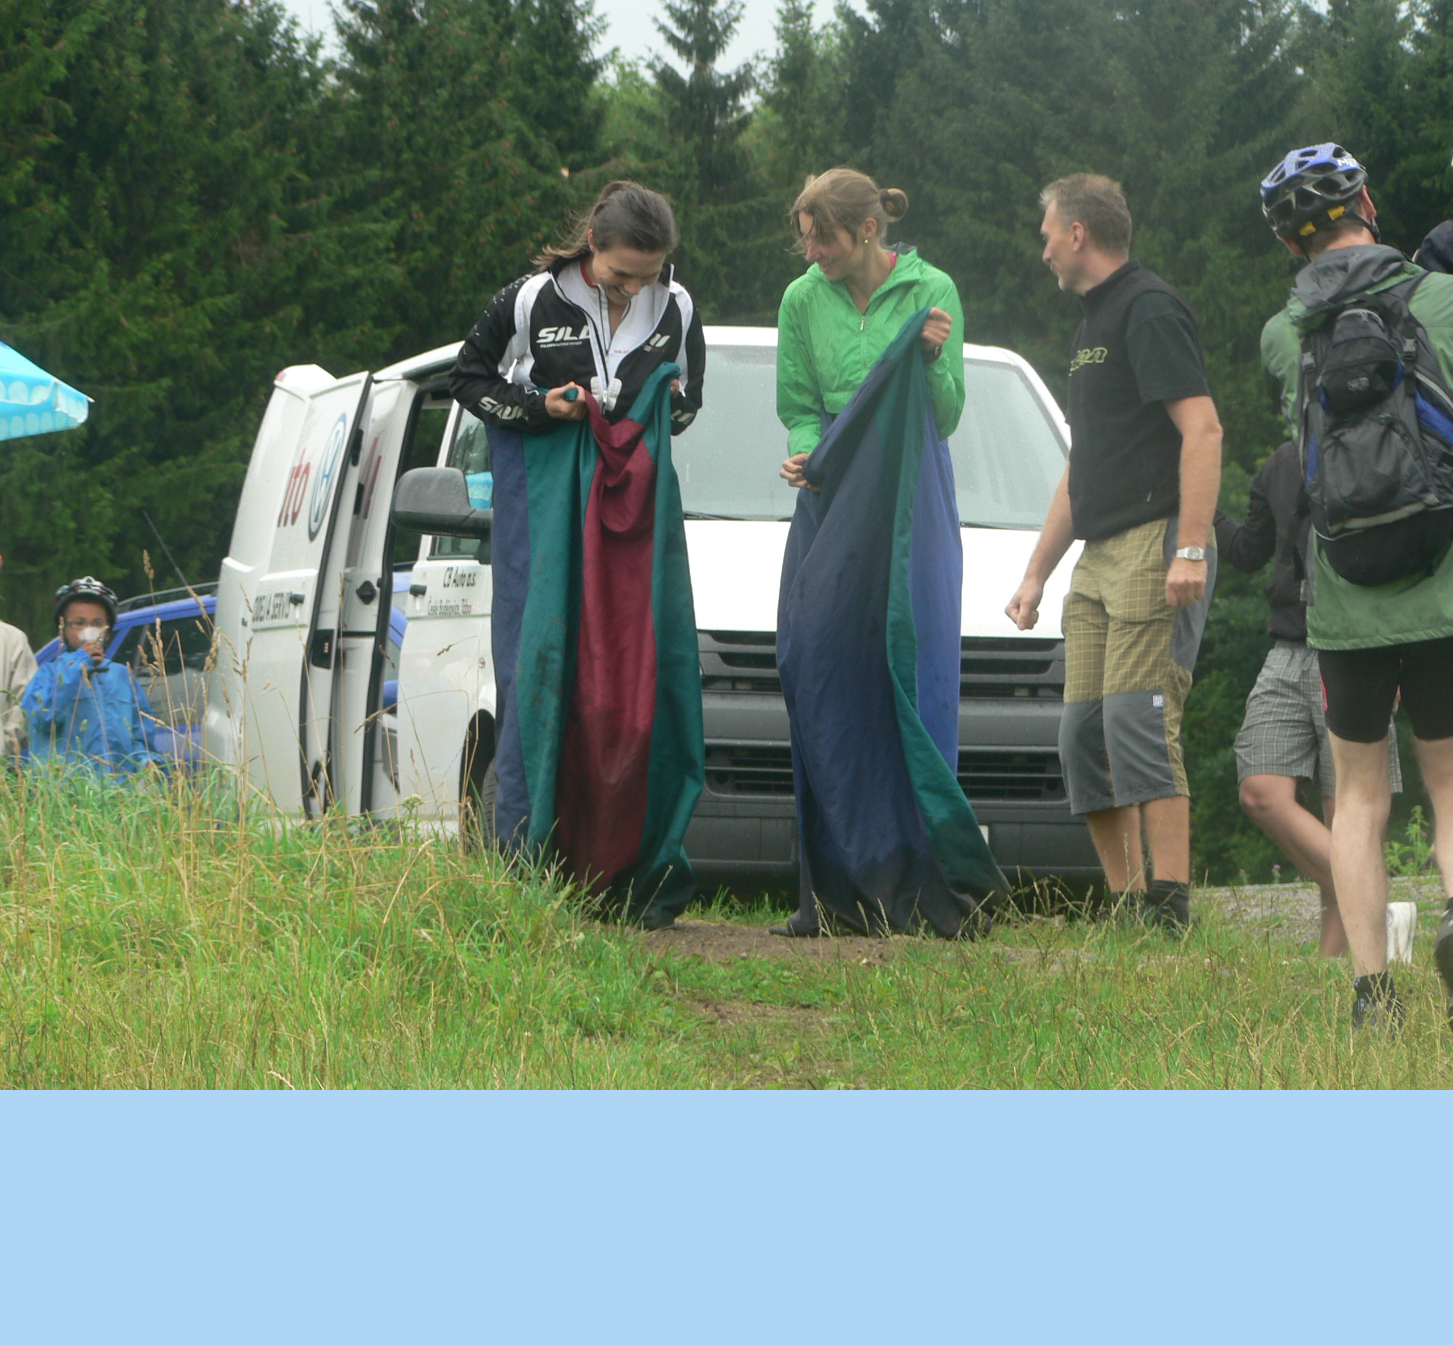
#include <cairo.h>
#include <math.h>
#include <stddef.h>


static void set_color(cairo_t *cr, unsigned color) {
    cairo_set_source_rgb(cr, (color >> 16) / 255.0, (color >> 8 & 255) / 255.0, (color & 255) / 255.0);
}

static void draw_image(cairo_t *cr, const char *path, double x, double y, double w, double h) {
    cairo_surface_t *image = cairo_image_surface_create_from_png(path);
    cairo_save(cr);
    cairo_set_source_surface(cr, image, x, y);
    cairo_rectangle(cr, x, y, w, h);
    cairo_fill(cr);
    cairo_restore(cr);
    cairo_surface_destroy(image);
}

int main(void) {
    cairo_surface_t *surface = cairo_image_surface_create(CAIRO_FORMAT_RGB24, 1453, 1345);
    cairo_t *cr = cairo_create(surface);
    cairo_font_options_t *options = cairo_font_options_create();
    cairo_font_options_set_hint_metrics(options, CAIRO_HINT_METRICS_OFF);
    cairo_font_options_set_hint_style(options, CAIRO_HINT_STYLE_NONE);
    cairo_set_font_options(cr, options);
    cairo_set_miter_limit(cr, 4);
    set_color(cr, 0xAFD5F4);
    cairo_paint(cr);
    draw_image(cr, "assets/img1.png", 0, 0, 1453, 1090);
    cairo_surface_write_to_png(surface, "output.png");
    cairo_font_options_destroy(options);
    cairo_destroy(cr);
    cairo_surface_destroy(surface);
    return 0;
}
